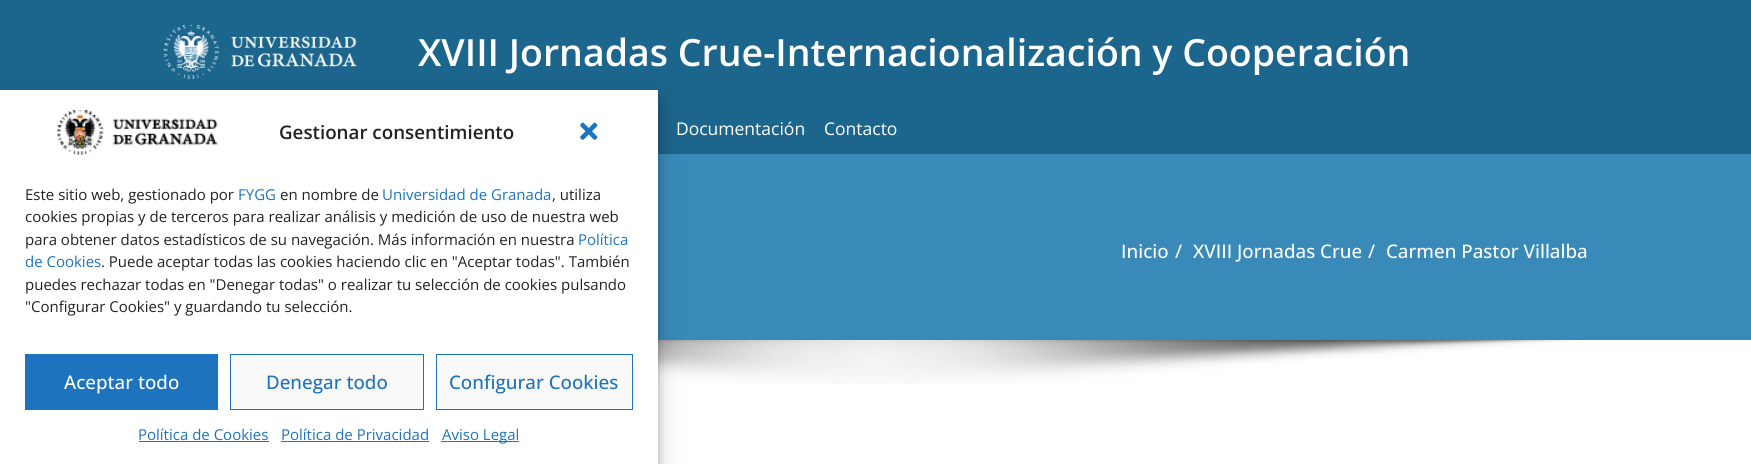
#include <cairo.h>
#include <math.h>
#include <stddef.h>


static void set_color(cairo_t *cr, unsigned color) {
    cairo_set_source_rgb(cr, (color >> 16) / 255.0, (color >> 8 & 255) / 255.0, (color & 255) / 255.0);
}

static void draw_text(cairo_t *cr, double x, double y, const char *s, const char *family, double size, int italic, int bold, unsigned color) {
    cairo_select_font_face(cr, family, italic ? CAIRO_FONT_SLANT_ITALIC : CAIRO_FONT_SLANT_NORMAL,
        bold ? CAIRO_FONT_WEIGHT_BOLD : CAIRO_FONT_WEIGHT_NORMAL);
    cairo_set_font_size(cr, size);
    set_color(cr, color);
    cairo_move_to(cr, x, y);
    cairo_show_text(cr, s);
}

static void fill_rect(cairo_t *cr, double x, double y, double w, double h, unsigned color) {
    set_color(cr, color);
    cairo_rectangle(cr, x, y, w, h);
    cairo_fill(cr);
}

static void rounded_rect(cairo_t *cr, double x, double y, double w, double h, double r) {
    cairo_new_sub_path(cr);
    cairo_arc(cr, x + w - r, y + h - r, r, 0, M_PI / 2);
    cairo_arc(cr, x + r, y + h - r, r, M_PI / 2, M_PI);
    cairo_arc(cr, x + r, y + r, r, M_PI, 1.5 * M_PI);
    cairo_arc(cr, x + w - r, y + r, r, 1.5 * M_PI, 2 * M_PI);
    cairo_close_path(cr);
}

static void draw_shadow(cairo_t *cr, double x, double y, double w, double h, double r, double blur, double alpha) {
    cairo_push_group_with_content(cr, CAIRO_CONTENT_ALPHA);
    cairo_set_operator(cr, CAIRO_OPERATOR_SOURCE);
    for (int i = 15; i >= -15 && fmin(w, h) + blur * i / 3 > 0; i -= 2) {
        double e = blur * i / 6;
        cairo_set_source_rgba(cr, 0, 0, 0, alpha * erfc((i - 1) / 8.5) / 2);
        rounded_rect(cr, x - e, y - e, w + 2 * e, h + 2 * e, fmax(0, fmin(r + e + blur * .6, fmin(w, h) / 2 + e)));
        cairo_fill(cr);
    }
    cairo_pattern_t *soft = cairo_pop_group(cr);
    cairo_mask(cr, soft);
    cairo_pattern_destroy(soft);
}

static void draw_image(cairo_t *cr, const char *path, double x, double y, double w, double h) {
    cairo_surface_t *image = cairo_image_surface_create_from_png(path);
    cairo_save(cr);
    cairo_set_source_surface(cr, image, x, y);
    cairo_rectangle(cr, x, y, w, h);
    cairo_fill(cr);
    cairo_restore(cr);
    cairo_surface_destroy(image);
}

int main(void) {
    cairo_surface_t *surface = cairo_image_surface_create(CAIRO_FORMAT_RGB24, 1751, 464);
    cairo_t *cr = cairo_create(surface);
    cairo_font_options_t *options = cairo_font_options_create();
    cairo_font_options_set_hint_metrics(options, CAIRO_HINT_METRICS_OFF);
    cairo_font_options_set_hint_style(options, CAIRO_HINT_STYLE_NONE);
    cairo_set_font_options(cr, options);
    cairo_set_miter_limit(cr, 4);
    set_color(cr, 0xFFFFFF);
    cairo_paint(cr);
    fill_rect(cr, 0, 0, 1751, 154, 0x1C658C);
    fill_rect(cr, 658, 154, 1093, 186, 0x398AB9);
    draw_image(cr, "assets/img4.png", 658, 340, 921, 44);
    set_color(cr, 0x000000);
    draw_shadow(cr, 0, 98, 658, 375, 0, 4, 0.23);
    draw_image(cr, "assets/img3.png", 163, 25, 194, 54);
    draw_shadow(cr, 0, 103, 658, 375, 0, 12.5, 0.19);
    fill_rect(cr, 0, 90, 658, 374, 0xFFFFFF);
    draw_image(cr, "assets/img1.png", 56, 109, 162, 46);
    draw_text(cr, 279, 139, "Gestionar consentimiento", "Open Sans SemiBold", 18.75, 0, 0, 0x222222);
    draw_image(cr, "assets/img2.png", 580, 122, 18, 18);
    draw_text(cr, 25, 200, "Este sitio web, gestionado por", "Open Sans", 15, 0, 0, 0x222222);
    draw_text(cr, 238, 200, "FYGG", "Open Sans", 15, 0, 0, 0x1E73BE);
    draw_text(cr, 280, 200, "en nombre de", "Open Sans", 15, 0, 0, 0x222222);
    draw_text(cr, 382, 200, "Universidad de Granada", "Open Sans", 15, 0, 0, 0x1E73BE);
    draw_text(cr, 552, 200, ", utiliza", "Open Sans", 15, 0, 0, 0x222222);
    draw_text(cr, 25, 222, "cookies propias y de terceros para realizar análisis y medición de uso de nuestra web", "Open Sans", 15, 0, 0, 0x222222);
    draw_text(cr, 25, 245, "para obtener datos estadísticos de su navegación. Más información en nuestra", "Open Sans", 15, 0, 0, 0x222222);
    draw_text(cr, 578, 245, "Política", "Open Sans", 15, 0, 0, 0x1E73BE);
    draw_text(cr, 25, 267, "de Cookies", "Open Sans", 15, 0, 0, 0x1E73BE);
    draw_text(cr, 101, 267, ". Puede aceptar todas las cookies haciendo clic en \"Aceptar todas\". También", "Open Sans", 15, 0, 0, 0x222222);
    draw_text(cr, 25, 290, "puedes rechazar todas en \"Denegar todas\" o realizar tu selección de cookies pulsando", "Open Sans", 15, 0, 0, 0x222222);
    draw_text(cr, 25, 312, "\"Configurar Cookies\" y guardando tu selección.", "Open Sans", 15, 0, 0, 0x222222);
    fill_rect(cr, 25, 354, 193, 56, 0x1E73BE);
    draw_text(cr, 64, 389, "Aceptar todo", "Open Sans Medium", 18.75, 0, 0, 0xFFFFFF);
    set_color(cr, 0xF9F9F9);
    cairo_rectangle(cr, 230.5, 354.5, 193, 55);
    cairo_fill_preserve(cr);
    set_color(cr, 0x1E73BE);
    cairo_set_line_width(cr, 1);
    cairo_stroke(cr);
    draw_text(cr, 266, 389, "Denegar todo", "Open Sans Medium", 18.75, 0, 0, 0x1E73BE);
    set_color(cr, 0xF9F9F9);
    cairo_rectangle(cr, 436.5, 354.5, 196, 55);
    cairo_fill_preserve(cr);
    set_color(cr, 0x1E73BE);
    cairo_stroke(cr);
    draw_text(cr, 449, 389, "Configurar Cookies", "Open Sans Medium", 18.75, 0, 0, 0x1E73BE);
    draw_text(cr, 138, 440, "Política de Cookies", "Open Sans", 15, 0, 0, 0x1E73BE);
    fill_rect(cr, 139, 441, 130, 1, 0x1E73BE);
    draw_text(cr, 281, 440, "Política de Privacidad", "Open Sans", 15, 0, 0, 0x1E73BE);
    fill_rect(cr, 281, 441, 148, 1, 0x1E73BE);
    fill_rect(cr, 441, 441, 78, 1, 0x1E73BE);
    draw_text(cr, 442, 440, "Aviso Legal", "Open Sans", 15, 0, 0, 0x1E73BE);
    draw_text(cr, 418, 66, "XVIII Jornadas Crue-Internacionalización y Cooperación", "Open Sans SemiBold", 37.5, 0, 0, 0xFFFFFF);
    draw_text(cr, 676, 135, "Documentación", "Open Sans", 17.5, 0, 0, 0xFFFFFF);
    draw_text(cr, 824, 135, "Contacto", "Open Sans", 17.5, 0, 0, 0xFFFFFF);
    draw_text(cr, 1121, 258, "Inicio", "Open Sans Medium", 18.75, 0, 0, 0xFFFFFF);
    draw_text(cr, 1175, 258, "/", "Open Sans Medium", 18.75, 0, 0, 0xFFFFFF);
    draw_text(cr, 1193, 258, "XVIII Jornadas Crue", "Open Sans Medium", 18.75, 0, 0, 0xFFFFFF);
    draw_text(cr, 1368, 258, "/", "Open Sans Medium", 18.75, 0, 0, 0xFFFFFF);
    draw_text(cr, 1386, 258, "Carmen Pastor Villalba", "Open Sans Medium", 18.75, 0, 0, 0xFFFFFF);
    cairo_surface_write_to_png(surface, "output.png");
    cairo_font_options_destroy(options);
    cairo_destroy(cr);
    cairo_surface_destroy(surface);
    return 0;
}
